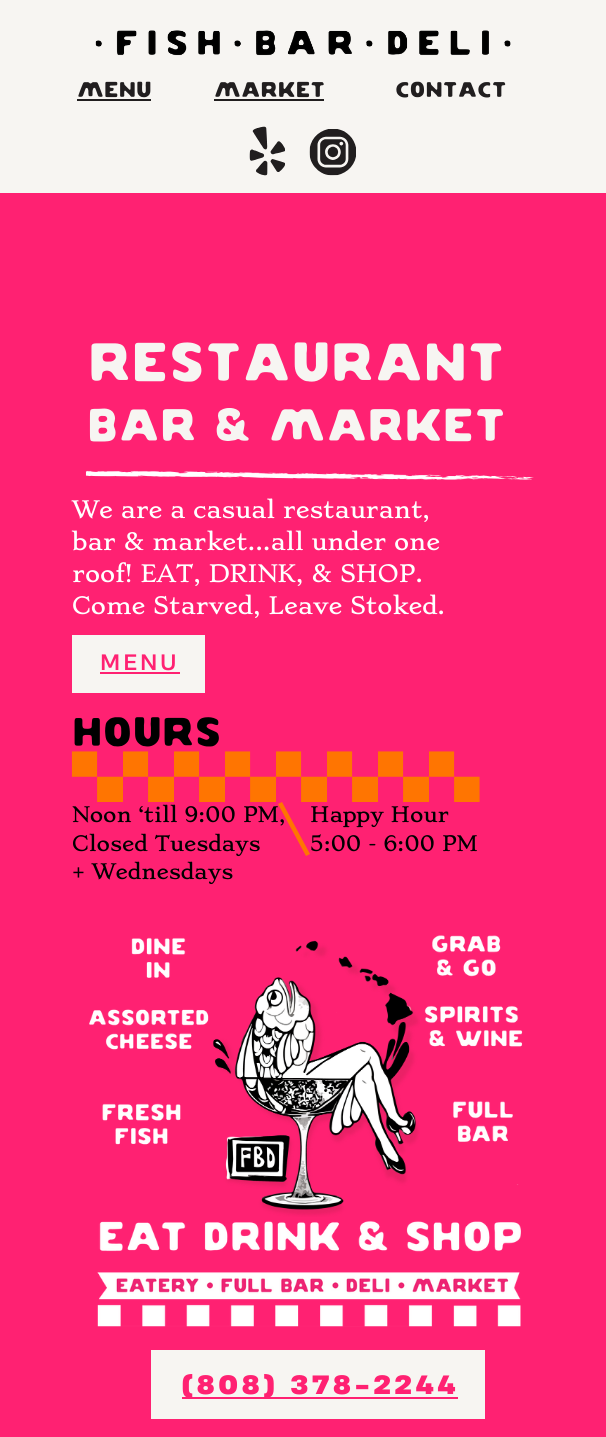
#include <cairo.h>
#include <math.h>
#include <stddef.h>


static void set_color(cairo_t *cr, unsigned color) {
    cairo_set_source_rgb(cr, (color >> 16) / 255.0, (color >> 8 & 255) / 255.0, (color & 255) / 255.0);
}

static void draw_text(cairo_t *cr, double x, double y, const char *s, const char *family, double size, int italic, int bold, unsigned color) {
    cairo_select_font_face(cr, family, italic ? CAIRO_FONT_SLANT_ITALIC : CAIRO_FONT_SLANT_NORMAL,
        bold ? CAIRO_FONT_WEIGHT_BOLD : CAIRO_FONT_WEIGHT_NORMAL);
    cairo_set_font_size(cr, size);
    set_color(cr, color);
    cairo_move_to(cr, x, y);
    cairo_show_text(cr, s);
}

static void draw_spaced(cairo_t *cr, double x, double y, const char *s, double letter, double word) {
    cairo_move_to(cr, x, y);
    while (*s) {
        char ch[5] = {0};
        int n = 0;
        do ch[n++] = *s++; while ((*s & 0xC0) == 0x80);
        cairo_show_text(cr, ch);
        cairo_rel_move_to(cr, letter + word * (*ch == ' '), 0);
    }
}

static void fill_rect(cairo_t *cr, double x, double y, double w, double h, unsigned color) {
    set_color(cr, color);
    cairo_rectangle(cr, x, y, w, h);
    cairo_fill(cr);
}

static void draw_image(cairo_t *cr, const char *path, double x, double y, double w, double h) {
    cairo_surface_t *image = cairo_image_surface_create_from_png(path);
    cairo_save(cr);
    cairo_set_source_surface(cr, image, x, y);
    cairo_rectangle(cr, x, y, w, h);
    cairo_fill(cr);
    cairo_restore(cr);
    cairo_surface_destroy(image);
}

int main(void) {
    cairo_surface_t *surface = cairo_image_surface_create(CAIRO_FORMAT_RGB24, 606, 1437);
    cairo_t *cr = cairo_create(surface);
    cairo_font_options_t *options = cairo_font_options_create();
    cairo_font_options_set_hint_metrics(options, CAIRO_HINT_METRICS_OFF);
    cairo_font_options_set_hint_style(options, CAIRO_HINT_STYLE_NONE);
    cairo_set_font_options(cr, options);
    cairo_set_miter_limit(cr, 4);
    set_color(cr, 0xF7F5F2);
    cairo_paint(cr);
    draw_image(cr, "assets/img1.png", 95, 30, 416, 26);
    draw_text(cr, 77, 97, "menu", "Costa", 21.5, 0, 0, 0x211E1F);
    fill_rect(cr, 77, 99, 74, 2, 0x211E1F);
    draw_text(cr, 214, 97, "market", "Costa", 21.5, 0, 0, 0x211E1F);
    fill_rect(cr, 214, 99, 110, 2, 0x211E1F);
    draw_text(cr, 395, 97, "contact", "Costa", 21.5, 0, 0, 0x211E1F);
    draw_image(cr, "assets/img2.png", 249, 126, 36, 50);
    draw_image(cr, "assets/img3.png", 309, 129, 47, 47);
    fill_rect(cr, 0, 193, 606, 1244, 0xFF2172);
    draw_text(cr, 88, 381, "restaurant", "Costa", 54.25, 0, 0, 0xF7F5F2);
    draw_text(cr, 87, 441, "Bar & Market", "Costa", 45.9, 0, 0, 0xF7F5F2);
    draw_image(cr, "assets/img4.png", 85, 470, 449, 10);
    draw_text(cr, 72, 518, "We are a casual restaurant,", "Stoke", 23.1, 0, 0, 0xFFFFFF);
    draw_text(cr, 72, 550, "bar & market...all under one", "Stoke", 23.1, 0, 0, 0xFFFFFF);
    draw_text(cr, 72, 582, "roof! EAT, DRINK, & SHOP.", "Stoke", 23.1, 0, 0, 0xFFFFFF);
    draw_text(cr, 72, 614, "Come Starved, Leave Stoked.", "Stoke", 23.1, 0, 0, 0xFFFFFF);
    fill_rect(cr, 72, 635, 133, 58, 0xF7F5F2);
    cairo_select_font_face(cr, "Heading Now", CAIRO_FONT_SLANT_NORMAL, CAIRO_FONT_WEIGHT_NORMAL);
    cairo_set_font_size(cr, 21);
    set_color(cr, 0xFF2172);
    draw_spaced(cr, 100, 670, "MENU", 3, 0);
    fill_rect(cr, 100, 672, 80, 2, 0xFF2172);
    draw_text(cr, 72, 746, "hours", "Costa", 40.5, 0, 0, 0x000000);
    draw_image(cr, "assets/img5.png", 71, 751, 409, 51);
    draw_text(cr, 72, 822, "Noon ‘till 9:00 PM,", "Stoke", 20.5, 0, 0, 0x000000);
    draw_text(cr, 72, 851, "Closed Tuesdays", "Stoke", 20.5, 0, 0, 0x000000);
    draw_text(cr, 72, 879, "+ Wednesdays", "Stoke", 20.5, 0, 0, 0x000000);
    set_color(cr, 0xFF7501);
    cairo_new_path(cr);
    cairo_move_to(cr, 306, 856);
    cairo_line_to(cr, 278, 804);
    cairo_line_to(cr, 282, 802);
    cairo_line_to(cr, 310, 854);
    cairo_close_path(cr);
    cairo_fill(cr);
    draw_text(cr, 310, 822, "Happy Hour", "Stoke", 20.5, 0, 0, 0x000000);
    draw_text(cr, 310, 851, "5:00 - 6:00 PM", "Stoke", 20.5, 0, 0, 0x000000);
    draw_image(cr, "assets/img6.png", 89, 935, 434, 392);
    draw_image(cr, "assets/img7.png", 213, 940, 207, 277);
    fill_rect(cr, 151, 1350, 334, 69, 0xF7F5F2);
    fill_rect(cr, 182, 1397, 276, 2, 0xFF2172);
    cairo_select_font_face(cr, "Heading Now", CAIRO_FONT_SLANT_NORMAL, CAIRO_FONT_WEIGHT_BOLD);
    cairo_set_font_size(cr, 24.9);
    draw_spaced(cr, 182, 1394, "(808) 378-2244", 3.9, 0);
    cairo_surface_write_to_png(surface, "output.png");
    cairo_font_options_destroy(options);
    cairo_destroy(cr);
    cairo_surface_destroy(surface);
    return 0;
}
